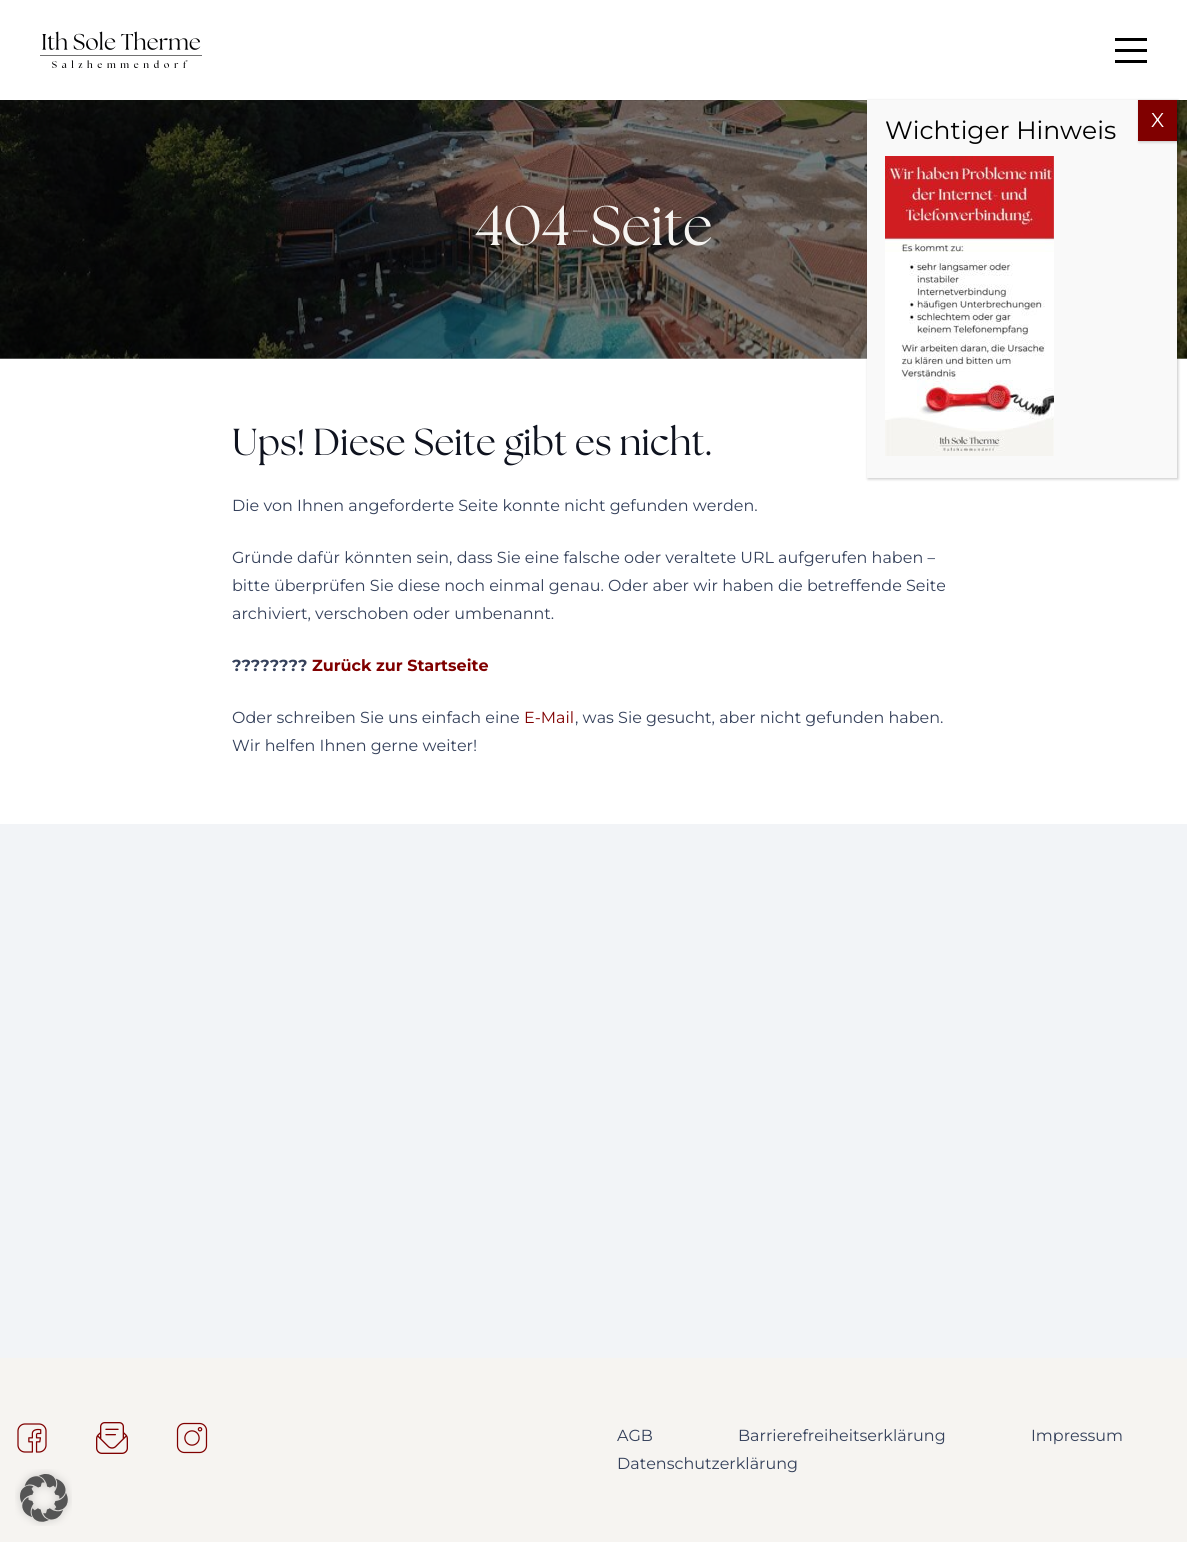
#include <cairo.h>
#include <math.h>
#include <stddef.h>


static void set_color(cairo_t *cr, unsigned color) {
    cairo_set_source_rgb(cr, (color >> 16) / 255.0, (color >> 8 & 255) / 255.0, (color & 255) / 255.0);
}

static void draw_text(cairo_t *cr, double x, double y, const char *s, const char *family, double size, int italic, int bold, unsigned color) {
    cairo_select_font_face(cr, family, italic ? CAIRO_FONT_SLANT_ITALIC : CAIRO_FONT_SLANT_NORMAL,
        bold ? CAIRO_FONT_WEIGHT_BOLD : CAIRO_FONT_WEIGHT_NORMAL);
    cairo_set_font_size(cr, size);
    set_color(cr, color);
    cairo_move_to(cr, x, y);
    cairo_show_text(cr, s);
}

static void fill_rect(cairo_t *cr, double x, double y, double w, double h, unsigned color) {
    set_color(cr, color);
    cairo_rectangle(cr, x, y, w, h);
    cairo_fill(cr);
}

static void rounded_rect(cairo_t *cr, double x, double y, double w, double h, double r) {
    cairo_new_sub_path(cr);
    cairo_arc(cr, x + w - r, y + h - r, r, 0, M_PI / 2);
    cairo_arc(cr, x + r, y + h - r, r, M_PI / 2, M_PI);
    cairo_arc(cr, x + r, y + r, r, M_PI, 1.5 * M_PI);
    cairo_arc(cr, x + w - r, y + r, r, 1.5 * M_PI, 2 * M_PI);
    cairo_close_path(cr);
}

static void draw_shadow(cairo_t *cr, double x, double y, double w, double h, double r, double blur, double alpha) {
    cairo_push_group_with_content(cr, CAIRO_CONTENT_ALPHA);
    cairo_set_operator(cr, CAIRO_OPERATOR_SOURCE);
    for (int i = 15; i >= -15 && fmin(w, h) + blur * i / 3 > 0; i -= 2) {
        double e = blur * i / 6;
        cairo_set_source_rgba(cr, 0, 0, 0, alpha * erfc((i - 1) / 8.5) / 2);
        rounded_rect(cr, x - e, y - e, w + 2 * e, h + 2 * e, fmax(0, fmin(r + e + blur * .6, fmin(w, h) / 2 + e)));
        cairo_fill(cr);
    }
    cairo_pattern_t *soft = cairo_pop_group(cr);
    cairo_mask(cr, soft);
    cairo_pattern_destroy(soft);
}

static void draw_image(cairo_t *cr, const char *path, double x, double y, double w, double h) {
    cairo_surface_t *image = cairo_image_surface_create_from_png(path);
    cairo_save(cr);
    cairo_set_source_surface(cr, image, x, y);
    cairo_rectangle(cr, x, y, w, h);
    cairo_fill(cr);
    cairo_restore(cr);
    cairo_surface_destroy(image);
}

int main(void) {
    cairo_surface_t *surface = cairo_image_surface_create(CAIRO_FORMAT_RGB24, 1187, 1542);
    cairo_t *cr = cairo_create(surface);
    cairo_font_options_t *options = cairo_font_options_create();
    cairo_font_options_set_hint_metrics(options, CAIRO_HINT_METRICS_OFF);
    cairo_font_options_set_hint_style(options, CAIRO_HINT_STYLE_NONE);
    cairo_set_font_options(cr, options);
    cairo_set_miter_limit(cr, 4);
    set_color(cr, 0xF2F4F7);
    cairo_paint(cr);
    fill_rect(cr, 0, 358, 1187, 466, 0xFFFFFF);
    draw_image(cr, "assets/img3.png", 0, 100, 1187, 259);
    cairo_set_source_rgba(cr, 0, 0, 0, 0.08);
    cairo_rectangle(cr, 421, 100, 766, 1);
    cairo_fill(cr);
    fill_rect(cr, 0, 0, 1187, 100, 0xFFFFFF);
    set_color(cr, 0x020202);
    draw_shadow(cr, 868, 101, 310, 378, 0, 1.5, 0.23);
    fill_rect(cr, 867, 100, 310, 378, 0xF9F9F9);
    draw_text(cr, 885, 139, "Wichtiger Hinweis", "Montserrat Thin", 25, 0, 0, 0x000000);
    set_color(cr, 0x020202);
    draw_shadow(cr, 1139, 101, 39, 41, 0, 1.5, 0.23);
    fill_rect(cr, 1138, 100, 39, 41, 0x800000);
    draw_text(cr, 1151, 127, "X", "Montserrat Thin", 20, 0, 0, 0xFFFFFF);
    draw_image(cr, "assets/img1.png", 885, 156, 169, 300);
    draw_image(cr, "assets/img2.png", 40, 31, 162, 37);
    fill_rect(cr, 1115, 49, 32, 3, 0x000000);
    fill_rect(cr, 1115, 38, 32, 3, 0x000000);
    fill_rect(cr, 1115, 60, 32, 3, 0x000000);
    draw_text(cr, 475, 245, "404-Seite", "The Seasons", 55.75, 0, 0, 0xF6F4F1);
    draw_text(cr, 232, 455, "Ups! Diese Seite gibt es nicht.", "The Seasons", 37.5, 0, 0, 0x0F131F);
    draw_text(cr, 232, 511, "Die von Ihnen angeforderte Seite konnte nicht gefunden werden.", "Montserrat Thin", 16, 0, 0, 0x35415B);
    draw_text(cr, 232, 563, "Gründe dafür könnten sein, dass Sie eine falsche oder veraltete URL aufgerufen haben –", "Montserrat Thin", 16, 0, 0, 0x35415B);
    draw_text(cr, 232, 591, "bitte überprüfen Sie diese noch einmal genau. Oder aber wir haben die betreffende Seite", "Montserrat Thin", 16, 0, 0, 0x35415B);
    draw_text(cr, 232, 619, "archiviert, verschoben oder umbenannt.", "Montserrat Thin", 16, 0, 0, 0x35415B);
    draw_text(cr, 232, 671, "?\077?\077?\077?\077", "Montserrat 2 Thin", 16, 0, 0, 0x35415B);
    draw_text(cr, 312, 671, "Zurück zur Startseite", "Montserrat 2 Thin", 16, 0, 0, 0x800000);
    draw_text(cr, 232, 723, "Oder schreiben Sie uns einfach eine", "Montserrat Thin", 16, 0, 0, 0x35415B);
    draw_text(cr, 524, 723, "E-Mail", "Montserrat Thin", 16, 0, 0, 0x800000);
    draw_text(cr, 575, 723, ", was Sie gesucht, aber nicht gefunden haben.", "Montserrat Thin", 16, 0, 0, 0x35415B);
    draw_text(cr, 232, 751, "Wir helfen Ihnen gerne weiter!", "Montserrat Thin", 16, 0, 0, 0x35415B);
    fill_rect(cr, 0, 1358, 1187, 184, 0xF6F4F1);
    draw_image(cr, "assets/img4.png", 17, 1423, 30, 30);
    draw_image(cr, "assets/img5.png", 96, 1422, 32, 32);
    draw_image(cr, "assets/img6.png", 176, 1422, 32, 32);
    draw_text(cr, 617, 1441, "AGB", "Montserrat Thin", 16, 0, 0, 0x35415B);
    draw_text(cr, 738, 1441, "Barrierefreiheitserklärung", "Montserrat Thin", 16, 0, 0, 0x35415B);
    draw_text(cr, 1031, 1441, "Impressum", "Montserrat Thin", 16, 0, 0, 0x35415B);
    draw_text(cr, 617, 1469, "Datenschutzerklärung", "Montserrat Thin", 16, 0, 0, 0x35415B);
    draw_image(cr, "assets/img7.png", 15, 1469, 57, 57);
    cairo_surface_write_to_png(surface, "output.png");
    cairo_font_options_destroy(options);
    cairo_destroy(cr);
    cairo_surface_destroy(surface);
    return 0;
}
